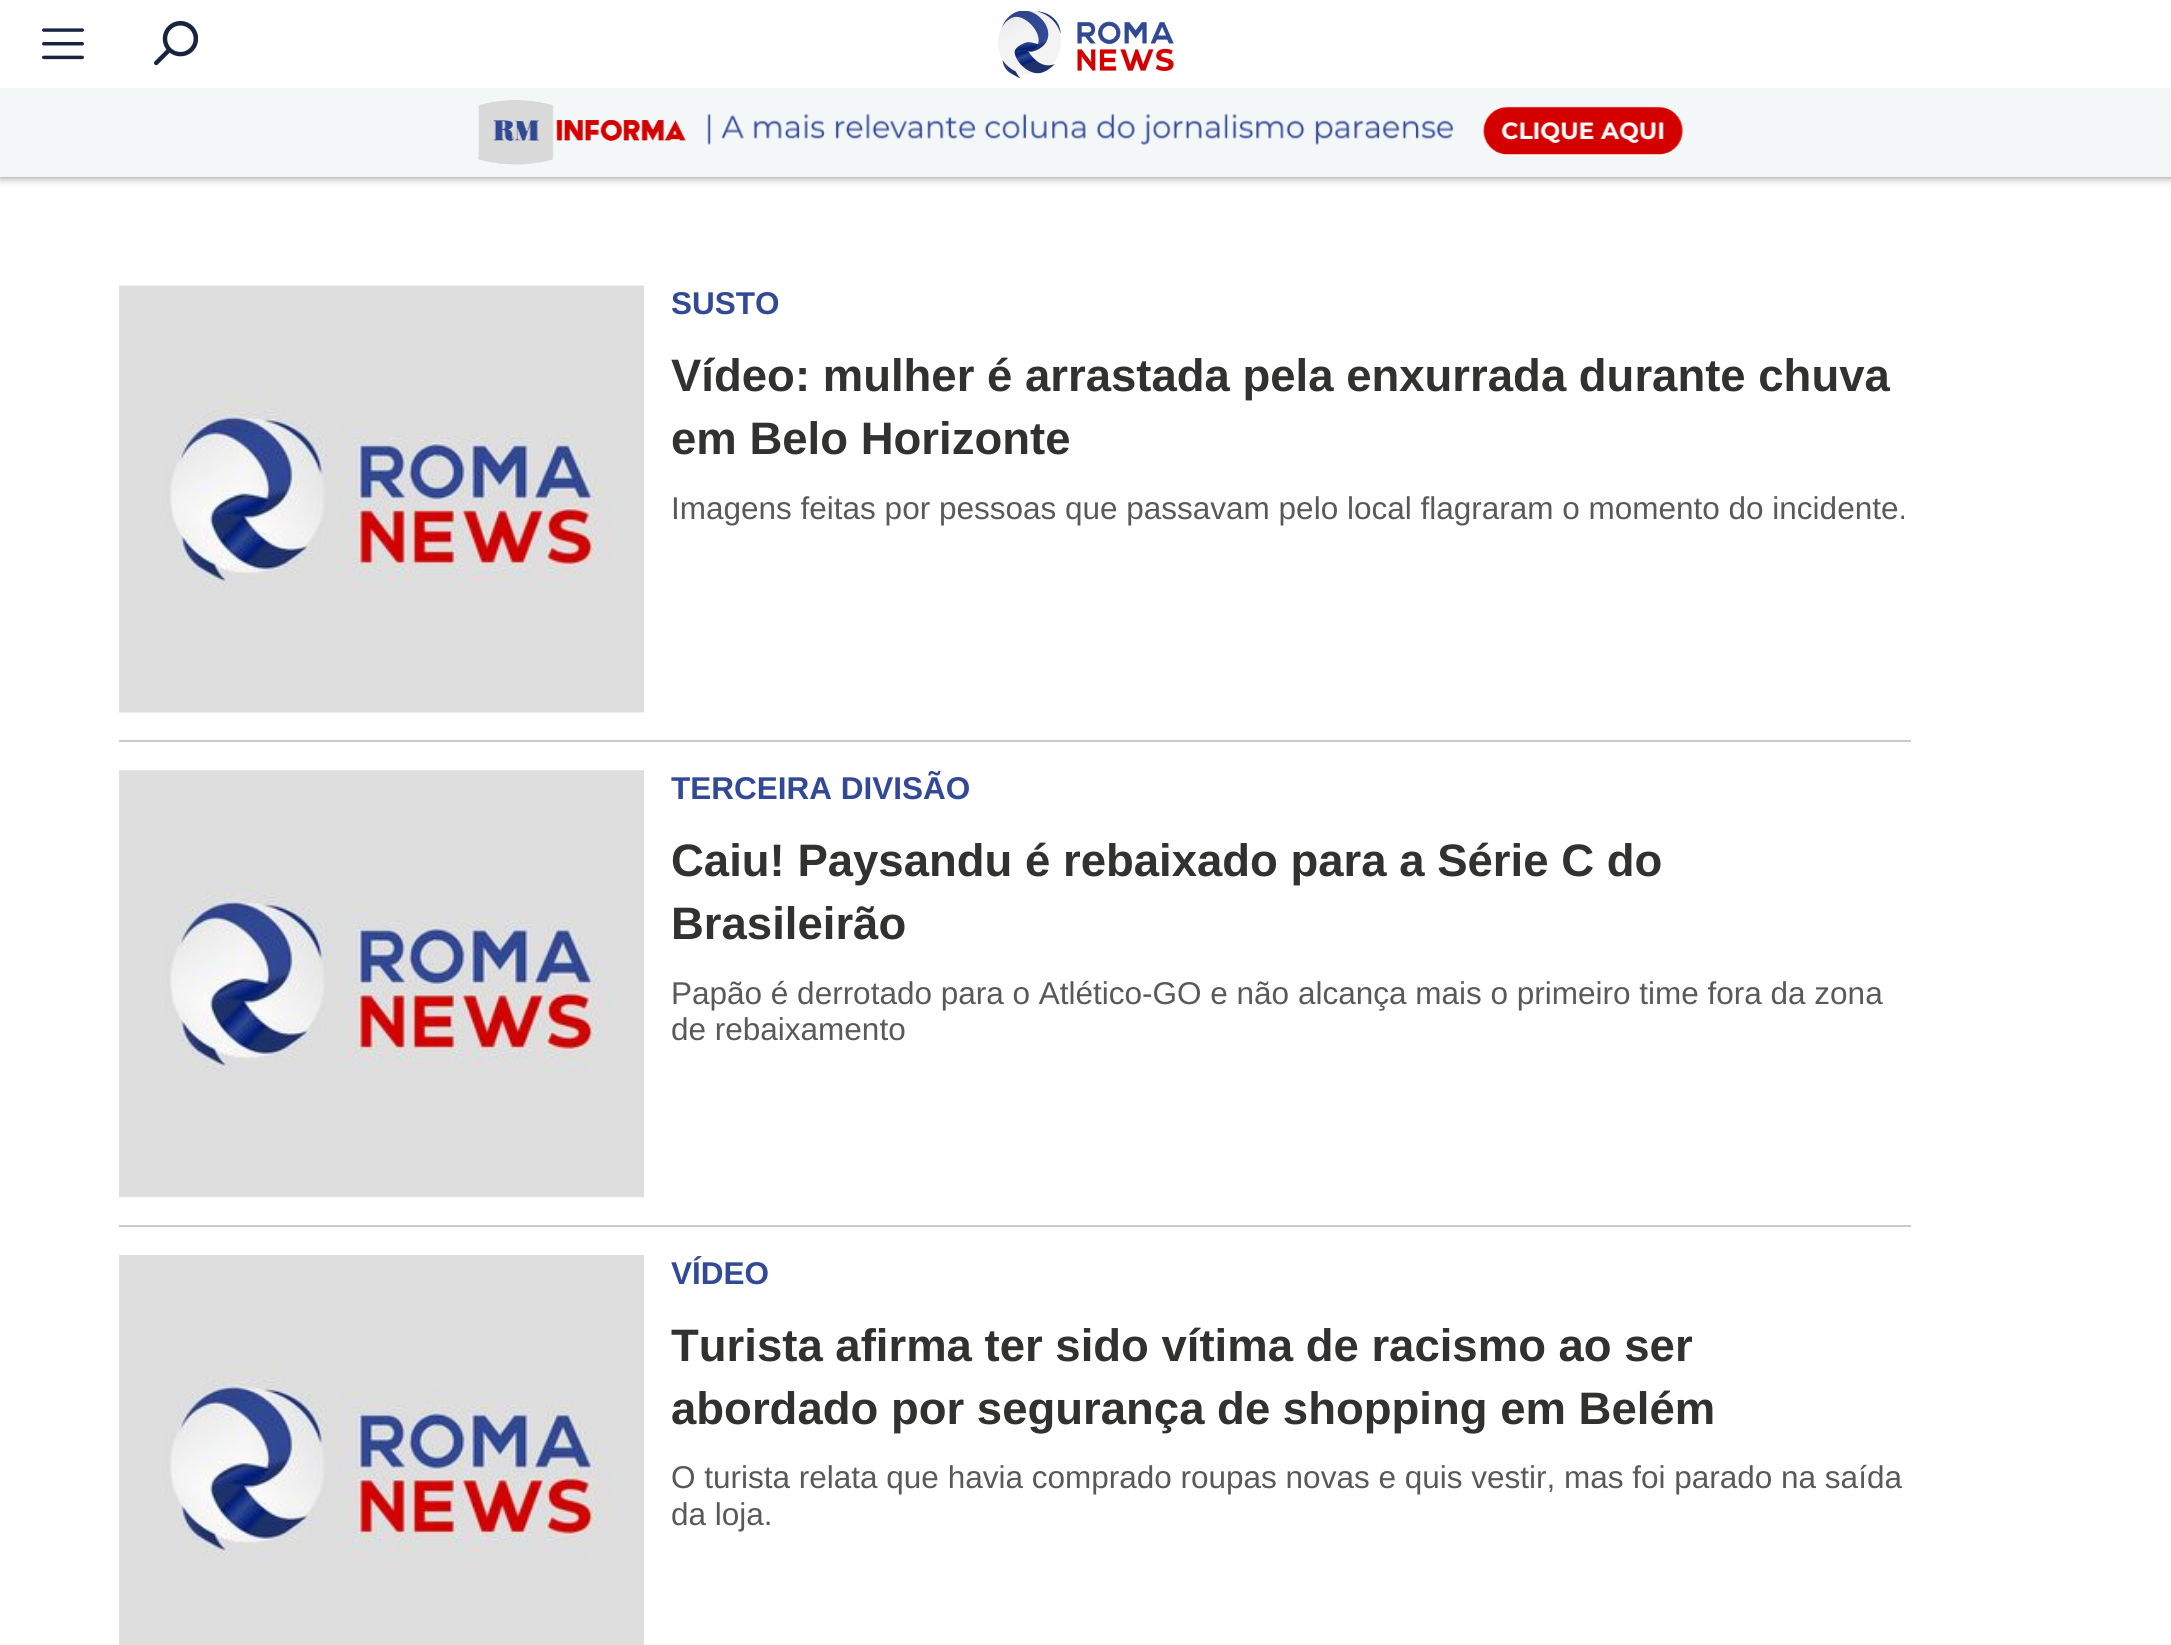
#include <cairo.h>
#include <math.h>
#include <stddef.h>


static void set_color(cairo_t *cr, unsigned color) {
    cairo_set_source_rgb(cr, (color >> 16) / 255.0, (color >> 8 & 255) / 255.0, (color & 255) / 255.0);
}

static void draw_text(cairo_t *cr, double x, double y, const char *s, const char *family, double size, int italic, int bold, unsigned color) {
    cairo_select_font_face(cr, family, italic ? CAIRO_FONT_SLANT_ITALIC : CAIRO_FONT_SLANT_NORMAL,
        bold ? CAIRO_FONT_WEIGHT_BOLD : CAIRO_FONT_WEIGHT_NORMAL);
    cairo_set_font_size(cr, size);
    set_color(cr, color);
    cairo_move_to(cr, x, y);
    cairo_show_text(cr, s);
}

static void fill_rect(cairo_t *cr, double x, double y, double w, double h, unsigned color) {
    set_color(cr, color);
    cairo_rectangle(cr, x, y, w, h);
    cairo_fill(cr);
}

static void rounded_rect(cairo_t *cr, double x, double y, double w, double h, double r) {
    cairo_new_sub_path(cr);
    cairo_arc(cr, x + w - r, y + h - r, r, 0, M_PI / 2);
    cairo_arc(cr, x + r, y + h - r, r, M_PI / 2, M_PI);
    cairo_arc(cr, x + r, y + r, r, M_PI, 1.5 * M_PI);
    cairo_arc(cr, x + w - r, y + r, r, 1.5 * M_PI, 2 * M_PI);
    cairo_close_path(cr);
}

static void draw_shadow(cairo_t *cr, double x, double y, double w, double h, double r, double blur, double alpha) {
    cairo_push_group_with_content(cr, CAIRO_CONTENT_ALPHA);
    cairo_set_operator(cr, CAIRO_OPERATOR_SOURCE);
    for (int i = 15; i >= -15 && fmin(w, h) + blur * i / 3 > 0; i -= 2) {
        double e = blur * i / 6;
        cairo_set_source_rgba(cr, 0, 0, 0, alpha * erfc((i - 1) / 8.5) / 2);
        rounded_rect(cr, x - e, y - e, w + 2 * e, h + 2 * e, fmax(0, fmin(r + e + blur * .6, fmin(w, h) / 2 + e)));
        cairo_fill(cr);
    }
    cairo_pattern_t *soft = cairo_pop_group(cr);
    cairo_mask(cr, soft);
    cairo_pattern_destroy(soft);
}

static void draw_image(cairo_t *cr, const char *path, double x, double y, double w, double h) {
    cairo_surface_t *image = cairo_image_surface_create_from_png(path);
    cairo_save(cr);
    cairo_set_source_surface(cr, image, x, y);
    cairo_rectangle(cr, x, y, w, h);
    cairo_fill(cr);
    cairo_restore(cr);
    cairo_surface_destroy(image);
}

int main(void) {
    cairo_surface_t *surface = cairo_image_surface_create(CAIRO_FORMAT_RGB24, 2171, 1645);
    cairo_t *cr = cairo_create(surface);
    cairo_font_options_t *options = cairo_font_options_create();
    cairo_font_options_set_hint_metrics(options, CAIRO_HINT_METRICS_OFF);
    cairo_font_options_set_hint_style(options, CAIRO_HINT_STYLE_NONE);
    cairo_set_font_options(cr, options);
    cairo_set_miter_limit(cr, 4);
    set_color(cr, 0xFFFFFF);
    cairo_paint(cr);
    set_color(cr, 0x7F7F7F);
    draw_shadow(cr, 0, 0, 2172, 177, 0, 4.5, 1);
    fill_rect(cr, 0, 0, 2171, 88, 0xFFFFFF);
    draw_image(cr, "assets/img1.png", 42, 28, 42, 32);
    draw_image(cr, "assets/img2.png", 154, 21, 44, 45);
    draw_image(cr, "assets/img3.png", 998, 11, 176, 67);
    fill_rect(cr, 0, 88, 2171, 89, 0xF3F7F8);
    draw_image(cr, "assets/img4.png", 478, 100, 208, 65);
    draw_image(cr, "assets/img5.png", 707, 113, 747, 32);
    draw_image(cr, "assets/img6.png", 1482, 106, 201, 49);
    fill_rect(cr, 119, 740, 1792, 2, 0xCBCBCB);
    draw_image(cr, "assets/img7.png", 119, 285, 525, 428);
    draw_text(cr, 671, 314, "SUSTO", "Liberation Sans", 31.5, 0, 1, 0x324995);
    draw_text(cr, 671, 391, "Vídeo: mulher é arrastada pela enxurrada durante chuva", "Liberation Sans", 45.5, 0, 1, 0x313130);
    draw_text(cr, 671, 454, "em Belo Horizonte", "Liberation Sans", 45.5, 0, 1, 0x313130);
    draw_text(cr, 671, 519, "Imagens feitas por pessoas que passavam pelo local flagraram o momento do incidente.", "Liberation Sans", 31.5, 0, 0, 0x595959);
    fill_rect(cr, 119, 1225, 1792, 2, 0xCBCBCB);
    draw_image(cr, "assets/img8.png", 119, 770, 525, 428);
    draw_text(cr, 671, 799, "TERCEIRA DIVISÃO", "Liberation Sans", 31.5, 0, 1, 0x324995);
    draw_text(cr, 671, 876, "Caiu! Paysandu é rebaixado para a Série C do", "Liberation Sans", 45.5, 0, 1, 0x313130);
    draw_text(cr, 671, 939, "Brasileirão", "Liberation Sans", 45.5, 0, 1, 0x313130);
    draw_text(cr, 671, 1004, "Papão é derrotado para o Atlético-GO e não alcança mais o primeiro time fora da zona", "Liberation Sans", 31.5, 0, 0, 0x595959);
    draw_text(cr, 671, 1040, "de rebaixamento", "Liberation Sans", 31.5, 0, 0, 0x595959);
    draw_image(cr, "assets/img9.png", 119, 1255, 525, 390);
    draw_text(cr, 671, 1284, "VÍDEO", "Liberation Sans", 31.5, 0, 1, 0x324995);
    draw_text(cr, 671, 1361, "Turista afirma ter sido vítima de racismo ao ser", "Liberation Sans", 45.5, 0, 1, 0x313130);
    draw_text(cr, 671, 1424, "abordado por segurança de shopping em Belém", "Liberation Sans", 45.5, 0, 1, 0x313130);
    draw_text(cr, 671, 1488, "O turista relata que havia comprado roupas novas e quis vestir, mas foi parado na saída", "Liberation Sans", 31.5, 0, 0, 0x595959);
    draw_text(cr, 671, 1525, "da loja.", "Liberation Sans", 31.5, 0, 0, 0x595959);
    cairo_surface_write_to_png(surface, "output.png");
    cairo_font_options_destroy(options);
    cairo_destroy(cr);
    cairo_surface_destroy(surface);
    return 0;
}
